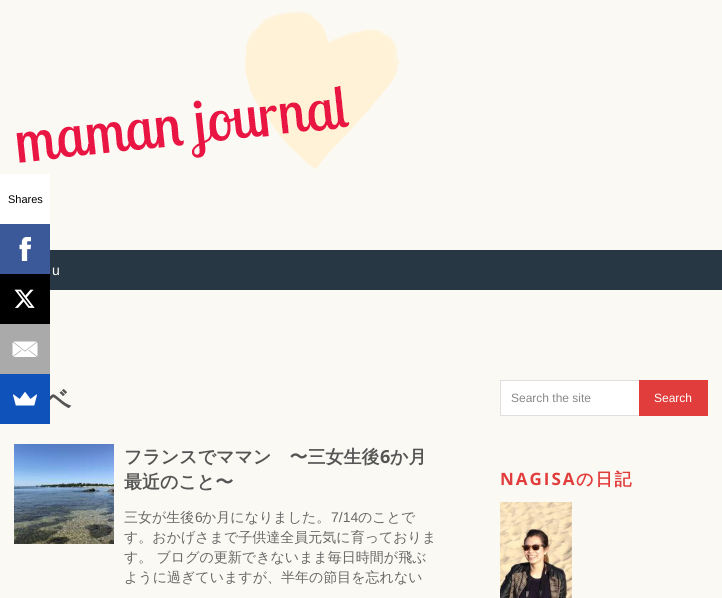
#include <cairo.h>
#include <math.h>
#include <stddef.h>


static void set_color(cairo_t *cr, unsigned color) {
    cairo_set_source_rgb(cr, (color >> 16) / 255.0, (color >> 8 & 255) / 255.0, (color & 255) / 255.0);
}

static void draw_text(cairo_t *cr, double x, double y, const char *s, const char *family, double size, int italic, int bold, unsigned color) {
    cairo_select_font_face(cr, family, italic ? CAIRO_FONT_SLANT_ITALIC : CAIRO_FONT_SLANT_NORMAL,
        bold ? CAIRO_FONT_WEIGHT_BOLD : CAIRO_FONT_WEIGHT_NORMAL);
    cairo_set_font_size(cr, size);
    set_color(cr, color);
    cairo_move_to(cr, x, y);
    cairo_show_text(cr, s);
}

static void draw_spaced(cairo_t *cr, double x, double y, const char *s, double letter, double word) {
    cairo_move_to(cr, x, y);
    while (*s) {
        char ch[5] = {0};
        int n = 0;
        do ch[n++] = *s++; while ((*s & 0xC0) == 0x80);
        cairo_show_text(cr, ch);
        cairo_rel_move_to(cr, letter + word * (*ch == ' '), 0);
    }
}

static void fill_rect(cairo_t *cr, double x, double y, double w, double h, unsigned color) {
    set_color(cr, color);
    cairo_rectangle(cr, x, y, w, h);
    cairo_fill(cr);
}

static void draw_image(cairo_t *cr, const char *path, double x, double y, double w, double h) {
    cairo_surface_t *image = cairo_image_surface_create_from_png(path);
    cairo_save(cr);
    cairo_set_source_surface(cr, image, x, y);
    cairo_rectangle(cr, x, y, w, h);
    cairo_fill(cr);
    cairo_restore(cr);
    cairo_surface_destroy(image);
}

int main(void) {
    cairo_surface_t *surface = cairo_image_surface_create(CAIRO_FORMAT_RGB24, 722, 598);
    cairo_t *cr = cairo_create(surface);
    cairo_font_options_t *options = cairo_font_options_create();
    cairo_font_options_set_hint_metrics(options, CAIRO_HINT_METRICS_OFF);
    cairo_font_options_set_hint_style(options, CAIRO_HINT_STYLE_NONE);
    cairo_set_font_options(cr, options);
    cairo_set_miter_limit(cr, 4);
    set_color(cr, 0xFBF9F3);
    cairo_paint(cr);
    fill_rect(cr, 0, 174, 50, 50, 0xFFFFFF);
    draw_text(cr, 8, 203, "Shares", "Liberation Sans", 11, 0, 0, 0x000000);
    fill_rect(cr, 0, 224, 50, 50, 0x3B5998);
    draw_image(cr, "assets/img1.png", 19, 237, 12, 24);
    fill_rect(cr, 0, 274, 50, 50, 0x000000);
    draw_image(cr, "assets/img2.png", 14, 289, 21, 19);
    fill_rect(cr, 0, 324, 50, 50, 0xAAAAAA);
    draw_image(cr, "assets/img3.png", 12, 341, 26, 16);
    draw_text(cr, 43, 410, "ベ", "WenQuanYi Zen Hei", 28, 0, 1, 0x555555);
    fill_rect(cr, 0, 374, 50, 50, 0x0F52BA);
    draw_image(cr, "assets/img4.png", 13, 392, 24, 14);
    draw_image(cr, "assets/img5.png", 16, 11, 384, 159);
    fill_rect(cr, 50, 250, 672, 40, 0x283744);
    draw_text(cr, 52, 275, "u", "Liberation Sans", 14, 0, 0, 0xFFFFFF);
    draw_image(cr, "assets/img6.png", 14, 444, 100, 100);
    draw_text(cr, 124, 463, "フランスでママン　〜三女生後", "WenQuanYi Zen Hei", 18, 0, 1, 0x555555);
    draw_text(cr, 380, 463, "6", "Open Sans", 18, 0, 1, 0x555555);
    draw_text(cr, 390, 463, "か月", "WenQuanYi Zen Hei", 18, 0, 1, 0x555555);
    draw_text(cr, 124, 488, "最近のこと〜", "WenQuanYi Zen Hei", 18, 0, 1, 0x555555);
    draw_text(cr, 124, 522, "三女が生後", "WenQuanYi Zen Hei Medium", 14, 0, 0, 0x696868);
    draw_text(cr, 195, 522, "6", "Liberation Sans", 14, 0, 0, 0x696868);
    draw_text(cr, 202, 522, "か月になりました。", "WenQuanYi Zen Hei Medium", 14, 0, 0, 0x696868);
    draw_text(cr, 331, 522, "7/14", "Liberation Sans", 14, 0, 0, 0x696868);
    draw_text(cr, 358, 522, "のことで", "WenQuanYi Zen Hei Medium", 14, 0, 0, 0x696868);
    draw_text(cr, 124, 542, "す。おかげさまで子供達全員元気に育っておりま", "WenQuanYi Zen Hei Medium", 14, 0, 0, 0x696868);
    draw_text(cr, 124, 562, "す。 ブログの更新できないまま毎日時間が飛ぶ", "WenQuanYi Zen Hei Medium", 14, 0, 0, 0x696868);
    draw_text(cr, 124, 582, "ように過ぎていますが、半年の節目を忘れない", "WenQuanYi Zen Hei Medium", 14, 0, 0, 0x696868);
    fill_rect(cr, 501, 381, 138, 34, 0xFFFFFF);
    fill_rect(cr, 500, 380, 140, 1, 0xDFDFDF);
    fill_rect(cr, 500, 415, 140, 1, 0xDFDFDF);
    fill_rect(cr, 500, 380, 1, 36, 0xDFDFDF);
    draw_text(cr, 511, 402, "Search the site", "Liberation Sans", 12, 0, 0, 0x888888);
    fill_rect(cr, 639, 380, 69, 36, 0xE13D3C);
    draw_text(cr, 654, 402, "Search", "Liberation Sans", 12, 0, 0, 0xFFFFFF);
    cairo_select_font_face(cr, "Open Sans", CAIRO_FONT_SLANT_NORMAL, CAIRO_FONT_WEIGHT_BOLD);
    cairo_set_font_size(cr, 17);
    set_color(cr, 0xE13D3C);
    draw_spaced(cr, 500, 485, "NAGISA", 2, 0);
    cairo_select_font_face(cr, "WenQuanYi Zen Hei", CAIRO_FONT_SLANT_NORMAL, CAIRO_FONT_WEIGHT_BOLD);
    draw_spaced(cr, 576, 485, "の日記", 2, 0);
    draw_image(cr, "assets/img7.png", 500, 502, 72, 96);
    cairo_surface_write_to_png(surface, "output.png");
    cairo_font_options_destroy(options);
    cairo_destroy(cr);
    cairo_surface_destroy(surface);
    return 0;
}
